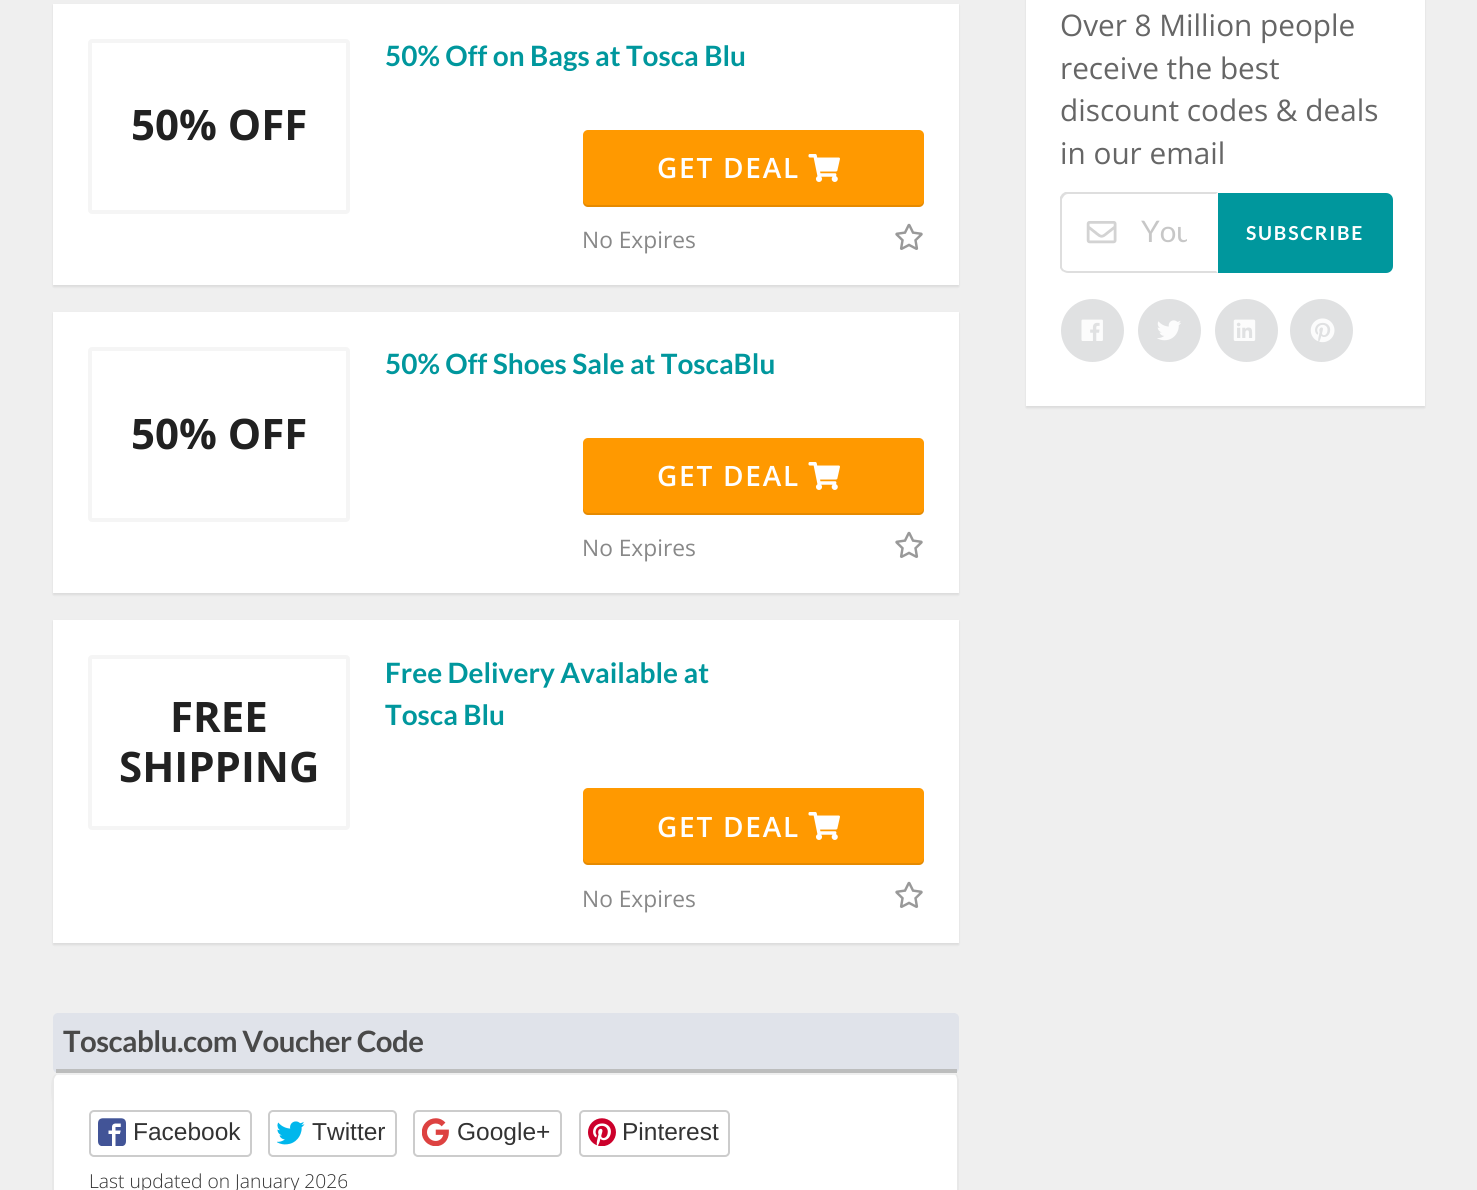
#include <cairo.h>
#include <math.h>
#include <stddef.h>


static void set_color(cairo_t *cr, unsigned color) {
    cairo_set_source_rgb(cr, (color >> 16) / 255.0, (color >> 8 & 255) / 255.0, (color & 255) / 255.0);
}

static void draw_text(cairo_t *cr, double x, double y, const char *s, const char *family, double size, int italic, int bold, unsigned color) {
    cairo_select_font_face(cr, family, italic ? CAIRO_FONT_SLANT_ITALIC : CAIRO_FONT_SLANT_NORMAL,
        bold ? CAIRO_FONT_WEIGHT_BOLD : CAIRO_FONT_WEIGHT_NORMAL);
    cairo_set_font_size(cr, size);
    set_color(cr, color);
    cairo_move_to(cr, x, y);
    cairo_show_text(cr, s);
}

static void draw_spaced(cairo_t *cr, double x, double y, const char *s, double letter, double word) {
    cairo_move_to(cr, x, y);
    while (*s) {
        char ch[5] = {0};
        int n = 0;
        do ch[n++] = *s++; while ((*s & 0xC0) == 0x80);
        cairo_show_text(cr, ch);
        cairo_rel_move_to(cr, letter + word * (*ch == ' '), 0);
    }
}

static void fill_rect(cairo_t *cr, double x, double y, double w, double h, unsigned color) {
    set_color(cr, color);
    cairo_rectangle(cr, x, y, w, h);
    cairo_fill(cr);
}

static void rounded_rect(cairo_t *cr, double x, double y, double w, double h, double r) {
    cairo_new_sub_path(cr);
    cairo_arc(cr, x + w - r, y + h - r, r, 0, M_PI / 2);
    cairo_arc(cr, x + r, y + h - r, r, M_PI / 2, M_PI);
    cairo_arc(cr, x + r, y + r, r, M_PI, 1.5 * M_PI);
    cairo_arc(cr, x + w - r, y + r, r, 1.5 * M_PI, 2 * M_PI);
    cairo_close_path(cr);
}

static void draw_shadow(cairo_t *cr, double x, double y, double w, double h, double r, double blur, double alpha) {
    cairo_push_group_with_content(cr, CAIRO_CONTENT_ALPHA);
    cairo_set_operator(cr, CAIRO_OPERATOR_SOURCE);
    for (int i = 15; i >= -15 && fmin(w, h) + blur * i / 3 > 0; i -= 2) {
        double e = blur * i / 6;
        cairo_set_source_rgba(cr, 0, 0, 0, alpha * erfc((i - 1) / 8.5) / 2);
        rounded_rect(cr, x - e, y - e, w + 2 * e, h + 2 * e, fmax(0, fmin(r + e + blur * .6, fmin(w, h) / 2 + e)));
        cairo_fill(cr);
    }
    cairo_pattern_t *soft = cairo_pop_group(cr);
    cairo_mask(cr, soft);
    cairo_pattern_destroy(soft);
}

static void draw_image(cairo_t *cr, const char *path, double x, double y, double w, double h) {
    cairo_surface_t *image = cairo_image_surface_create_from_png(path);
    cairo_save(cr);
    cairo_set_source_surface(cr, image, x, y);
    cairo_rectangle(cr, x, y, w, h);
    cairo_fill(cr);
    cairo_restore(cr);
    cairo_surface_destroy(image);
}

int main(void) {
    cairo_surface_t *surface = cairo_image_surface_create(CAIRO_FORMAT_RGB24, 1477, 1190);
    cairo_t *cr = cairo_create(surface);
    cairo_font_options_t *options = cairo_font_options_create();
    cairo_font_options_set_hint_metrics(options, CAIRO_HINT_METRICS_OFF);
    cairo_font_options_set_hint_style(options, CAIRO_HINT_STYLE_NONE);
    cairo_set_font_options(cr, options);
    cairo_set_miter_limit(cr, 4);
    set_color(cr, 0xEFEFEF);
    cairo_paint(cr);
    set_color(cr, 0x000000);
    draw_shadow(cr, 53, 5, 906, 282, 0, 1, 0.08);
    fill_rect(cr, 53, 4, 906, 281, 0xFFFFFF);
    draw_text(cr, 385, 66, "50% Off on Bags at Tosca Blu", "Lato", 28, 0, 1, 0x00979D);
    rounded_rect(cr, 90, 41, 258, 171, 2);
    set_color(cr, 0xF5F5F5);
    cairo_set_line_width(cr, 4);
    cairo_stroke(cr);
    draw_text(cr, 131, 140, "50% OFF", "Open Sans", 42, 0, 1, 0x212121);
    set_color(cr, 0xFF9900);
    rounded_rect(cr, 583, 130, 341, 77, 5);
    cairo_fill(cr);
    cairo_set_source_rgba(cr, 0, 0, 0, 0.1);
    cairo_new_path(cr);
    cairo_move_to(cr, 583, 200);
    cairo_line_to(cr, 583, 202);
    cairo_curve_to(cr, 583, 205, 585, 207, 588, 207);
    cairo_line_to(cr, 919, 207);
    cairo_curve_to(cr, 922, 207, 924, 205, 924, 202);
    cairo_line_to(cr, 924, 200);
    cairo_curve_to(cr, 924, 202, 922, 205, 919, 205);
    cairo_line_to(cr, 588, 205);
    cairo_curve_to(cr, 585, 205, 583, 202, 583, 200);
    cairo_close_path(cr);
    cairo_fill(cr);
    cairo_select_font_face(cr, "Open Sans SemiBold", CAIRO_FONT_SLANT_NORMAL, CAIRO_FONT_WEIGHT_NORMAL);
    cairo_set_font_size(cr, 28);
    set_color(cr, 0xFFFFFF);
    draw_spaced(cr, 657, 178, "GET DEAL", 1.75, 0);
    draw_image(cr, "assets/img1.png", 808, 154, 32, 28);
    draw_text(cr, 582, 248, "No Expires", "Open Sans", 22.75, 0, 0, 0x888888);
    draw_image(cr, "assets/img2.png", 895, 223, 28, 27);
    set_color(cr, 0x000000);
    draw_shadow(cr, 53, 313, 906, 282, 0, 1, 0.08);
    fill_rect(cr, 53, 312, 906, 281, 0xFFFFFF);
    draw_text(cr, 385, 374, "50% Off Shoes Sale at ToscaBlu", "Lato", 28, 0, 1, 0x00979D);
    rounded_rect(cr, 90, 349, 258, 171, 2);
    set_color(cr, 0xF5F5F5);
    cairo_stroke(cr);
    draw_text(cr, 131, 449, "50% OFF", "Open Sans", 42, 0, 1, 0x212121);
    set_color(cr, 0xFF9900);
    rounded_rect(cr, 583, 438, 341, 77, 5);
    cairo_fill(cr);
    cairo_set_source_rgba(cr, 0, 0, 0, 0.1);
    cairo_new_path(cr);
    cairo_move_to(cr, 583, 508);
    cairo_line_to(cr, 583, 510);
    cairo_curve_to(cr, 583, 513, 585, 515, 588, 515);
    cairo_line_to(cr, 919, 515);
    cairo_curve_to(cr, 922, 515, 924, 513, 924, 510);
    cairo_line_to(cr, 924, 508);
    cairo_curve_to(cr, 924, 510, 922, 513, 919, 513);
    cairo_line_to(cr, 588, 513);
    cairo_curve_to(cr, 585, 513, 583, 510, 583, 508);
    cairo_close_path(cr);
    cairo_fill(cr);
    cairo_select_font_face(cr, "Open Sans SemiBold", CAIRO_FONT_SLANT_NORMAL, CAIRO_FONT_WEIGHT_NORMAL);
    cairo_set_font_size(cr, 28);
    set_color(cr, 0xFFFFFF);
    draw_spaced(cr, 657, 486, "GET DEAL", 1.75, 0);
    draw_image(cr, "assets/img1.png", 808, 462, 32, 28);
    draw_text(cr, 582, 556, "No Expires", "Open Sans", 22.75, 0, 0, 0x888888);
    draw_image(cr, "assets/img2.png", 895, 531, 28, 27);
    set_color(cr, 0x000000);
    draw_shadow(cr, 53, 621, 906, 324, 0, 1, 0.08);
    fill_rect(cr, 53, 620, 906, 323, 0xFFFFFF);
    draw_text(cr, 385, 683, "Free Delivery Available at", "Lato", 28, 0, 1, 0x00979D);
    draw_text(cr, 385, 725, "Tosca Blu", "Lato", 28, 0, 1, 0x00979D);
    rounded_rect(cr, 90, 657, 258, 171, 2);
    set_color(cr, 0xF5F5F5);
    cairo_stroke(cr);
    draw_text(cr, 170, 732, "FREE", "Open Sans", 42, 0, 1, 0x212121);
    draw_text(cr, 119, 782, "SHIPPING", "Open Sans", 42, 0, 1, 0x212121);
    set_color(cr, 0xFF9900);
    rounded_rect(cr, 583, 788, 341, 77, 5);
    cairo_fill(cr);
    cairo_set_source_rgba(cr, 0, 0, 0, 0.1);
    cairo_new_path(cr);
    cairo_move_to(cr, 583, 858);
    cairo_line_to(cr, 583, 860);
    cairo_curve_to(cr, 583, 863, 585, 865, 588, 865);
    cairo_line_to(cr, 919, 865);
    cairo_curve_to(cr, 922, 865, 924, 863, 924, 860);
    cairo_line_to(cr, 924, 858);
    cairo_curve_to(cr, 924, 860, 922, 863, 919, 863);
    cairo_line_to(cr, 588, 863);
    cairo_curve_to(cr, 585, 863, 583, 860, 583, 858);
    cairo_close_path(cr);
    cairo_fill(cr);
    cairo_select_font_face(cr, "Open Sans SemiBold", CAIRO_FONT_SLANT_NORMAL, CAIRO_FONT_WEIGHT_NORMAL);
    cairo_set_font_size(cr, 28);
    set_color(cr, 0xFFFFFF);
    draw_spaced(cr, 657, 837, "GET DEAL", 1.75, 0);
    draw_image(cr, "assets/img1.png", 808, 812, 32, 28);
    draw_text(cr, 582, 907, "No Expires", "Open Sans", 22.75, 0, 0, 0x888888);
    draw_image(cr, "assets/img2.png", 895, 881, 28, 27);
    set_color(cr, 0xE0E3EA);
    rounded_rect(cr, 53, 1013, 906, 60, 5);
    cairo_fill(cr);
    fill_rect(cr, 56, 1069, 901, 4, 0xBCBDBD);
    cairo_select_font_face(cr, "Lato", CAIRO_FONT_SLANT_NORMAL, CAIRO_FONT_WEIGHT_BOLD);
    cairo_set_font_size(cr, 29.4);
    set_color(cr, 0x494949);
    draw_spaced(cr, 63, 1052, "Toscablu.com Voucher Code", -0.5, 0);
    set_color(cr, 0xFFFFFF);
    rounded_rect(cr, 53, 1075, 906, 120, 5);
    cairo_fill(cr);
    set_color(cr, 0xE8E8E8);
    cairo_new_path(cr);
    cairo_move_to(cr, 956, 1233);
    cairo_line_to(cr, 957, 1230);
    cairo_line_to(cr, 957, 1080);
    cairo_curve_to(cr, 957, 1078, 956, 1075, 955, 1074);
    cairo_line_to(cr, 956, 1074);
    cairo_curve_to(cr, 958, 1075, 959, 1078, 959, 1080);
    cairo_line_to(cr, 959, 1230);
    cairo_curve_to(cr, 959, 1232, 958, 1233, 958, 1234);
    cairo_close_path(cr);
    cairo_fill(cr);
    cairo_new_path(cr);
    cairo_move_to(cr, 57, 1074);
    cairo_line_to(cr, 56, 1075);
    cairo_line_to(cr, 54, 1079);
    cairo_line_to(cr, 54, 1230);
    cairo_line_to(cr, 55, 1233);
    cairo_line_to(cr, 54, 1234);
    cairo_line_to(cr, 52, 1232);
    cairo_line_to(cr, 52, 1104);
    cairo_curve_to(cr, 52, 1099, 48, 1074, 57, 1074);
    cairo_close_path(cr);
    cairo_fill(cr);
    rounded_rect(cr, 90, 1111, 161, 45, 4);
    set_color(cr, 0xCCCCCC);
    cairo_set_line_width(cr, 2);
    cairo_stroke(cr);
    draw_image(cr, "assets/img3.png", 98, 1118, 28, 28);
    draw_text(cr, 133, 1140, "Facebook", "Liberation Sans", 24.5, 0, 0, 0x333333);
    rounded_rect(cr, 269, 1111, 127, 45, 4);
    set_color(cr, 0xCCCCCC);
    cairo_stroke(cr);
    draw_image(cr, "assets/img4.png", 277, 1121, 28, 24);
    draw_text(cr, 312, 1140, "Twitter", "Liberation Sans", 24.5, 0, 0, 0x333333);
    rounded_rect(cr, 414, 1111, 147, 45, 4);
    set_color(cr, 0xCCCCCC);
    cairo_stroke(cr);
    draw_image(cr, "assets/img5.png", 422, 1118, 27, 28);
    draw_text(cr, 457, 1140, "Google+", "Liberation Sans", 24.5, 0, 0, 0x333333);
    rounded_rect(cr, 580, 1111, 149, 45, 4);
    set_color(cr, 0xCCCCCC);
    cairo_stroke(cr);
    draw_image(cr, "assets/img6.png", 588, 1118, 28, 28);
    draw_text(cr, 622, 1140, "Pinterest", "Liberation Sans", 24.5, 0, 0, 0x333333);
    draw_text(cr, 89, 1188, "Last updated on January 2026", "Open Sans Light", 19.25, 0, 0, 0x333333);
    set_color(cr, 0x000000);
    draw_shadow(cr, 1026, -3, 399, 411, 0, 1, 0.08);
    fill_rect(cr, 1026, 0, 399, 406, 0xFFFFFF);
    draw_text(cr, 1060, 36, "Over 8 Million people", "Open Sans", 29.75, 0, 0, 0x666666);
    draw_text(cr, 1060, 79, "receive the best", "Open Sans", 29.75, 0, 0, 0x666666);
    draw_text(cr, 1060, 121, "discount codes & deals", "Open Sans", 29.75, 0, 0, 0x666666);
    draw_text(cr, 1060, 164, "in our email", "Open Sans", 29.75, 0, 0, 0x666666);
    draw_image(cr, "assets/img7.png", 1086, 221, 31, 23);
    set_color(cr, 0xDEDEDE);
    cairo_new_path(cr);
    cairo_move_to(cr, 1068, 194);
    cairo_curve_to(cr, 1066, 194, 1065, 195, 1064, 196);
    cairo_line_to(cr, 1062, 194);
    cairo_line_to(cr, 1065, 192);
    cairo_line_to(cr, 1218, 192);
    cairo_line_to(cr, 1216, 194);
    cairo_close_path(cr);
    cairo_fill(cr);
    cairo_new_path(cr);
    cairo_move_to(cr, 1218, 273);
    cairo_line_to(cr, 1216, 271);
    cairo_line_to(cr, 1068, 271);
    cairo_curve_to(cr, 1066, 271, 1065, 270, 1064, 270);
    cairo_line_to(cr, 1062, 271);
    cairo_curve_to(cr, 1064, 272, 1066, 273, 1068, 273);
    cairo_close_path(cr);
    cairo_fill(cr);
    cairo_set_source_rgba(cr, 0.133, 0.141, 0.149, 0.15);
    cairo_new_path(cr);
    cairo_move_to(cr, 1060, 197);
    cairo_line_to(cr, 1062, 194);
    cairo_line_to(cr, 1064, 196);
    cairo_line_to(cr, 1062, 199);
    cairo_line_to(cr, 1062, 267);
    cairo_curve_to(cr, 1062, 268, 1063, 269, 1064, 270);
    cairo_line_to(cr, 1062, 271);
    cairo_line_to(cr, 1060, 268);
    cairo_close_path(cr);
    cairo_fill(cr);
    cairo_save(cr);
    cairo_rectangle(cr, 1141, 212, 46, 37);
    cairo_clip(cr);
    draw_text(cr, 1141, 242, "You", "Lato", 29.75, 0, 0, 0xC7C7C7);
    cairo_restore(cr);
    set_color(cr, 0x00979D);
    cairo_new_path(cr);
    cairo_move_to(cr, 1218, 193);
    cairo_line_to(cr, 1386, 193);
    cairo_curve_to(cr, 1390, 193, 1393, 196, 1393, 200);
    cairo_line_to(cr, 1393, 266);
    cairo_curve_to(cr, 1393, 270, 1390, 273, 1386, 273);
    cairo_line_to(cr, 1218, 273);
    cairo_close_path(cr);
    cairo_fill(cr);
    cairo_select_font_face(cr, "Lato", CAIRO_FONT_SLANT_NORMAL, CAIRO_FONT_WEIGHT_BOLD);
    cairo_set_font_size(cr, 19.25);
    set_color(cr, 0xFFFFFF);
    draw_spaced(cr, 1246, 240, "SUBSCRIBE", 1.75, 0);
    set_color(cr, 0xE0E1E2);
    cairo_new_path(cr);
    cairo_arc(cr, 1092.5, 330.5, 31.5, 0, 2 * M_PI);
    cairo_fill(cr);
    draw_image(cr, "assets/img8.png", 1081, 319, 22, 22);
    cairo_arc(cr, 1169.5, 330.5, 31.5, 0, 2 * M_PI);
    cairo_fill(cr);
    draw_image(cr, "assets/img9.png", 1157, 320, 24, 21);
    cairo_arc(cr, 1246.5, 330.5, 31.5, 0, 2 * M_PI);
    cairo_fill(cr);
    draw_image(cr, "assets/img10.png", 1233, 319, 23, 22);
    cairo_arc(cr, 1321.5, 330.5, 31.5, 0, 2 * M_PI);
    cairo_fill(cr);
    draw_image(cr, "assets/img11.png", 1310, 318, 25, 25);
    cairo_surface_write_to_png(surface, "output.png");
    cairo_font_options_destroy(options);
    cairo_destroy(cr);
    cairo_surface_destroy(surface);
    return 0;
}
